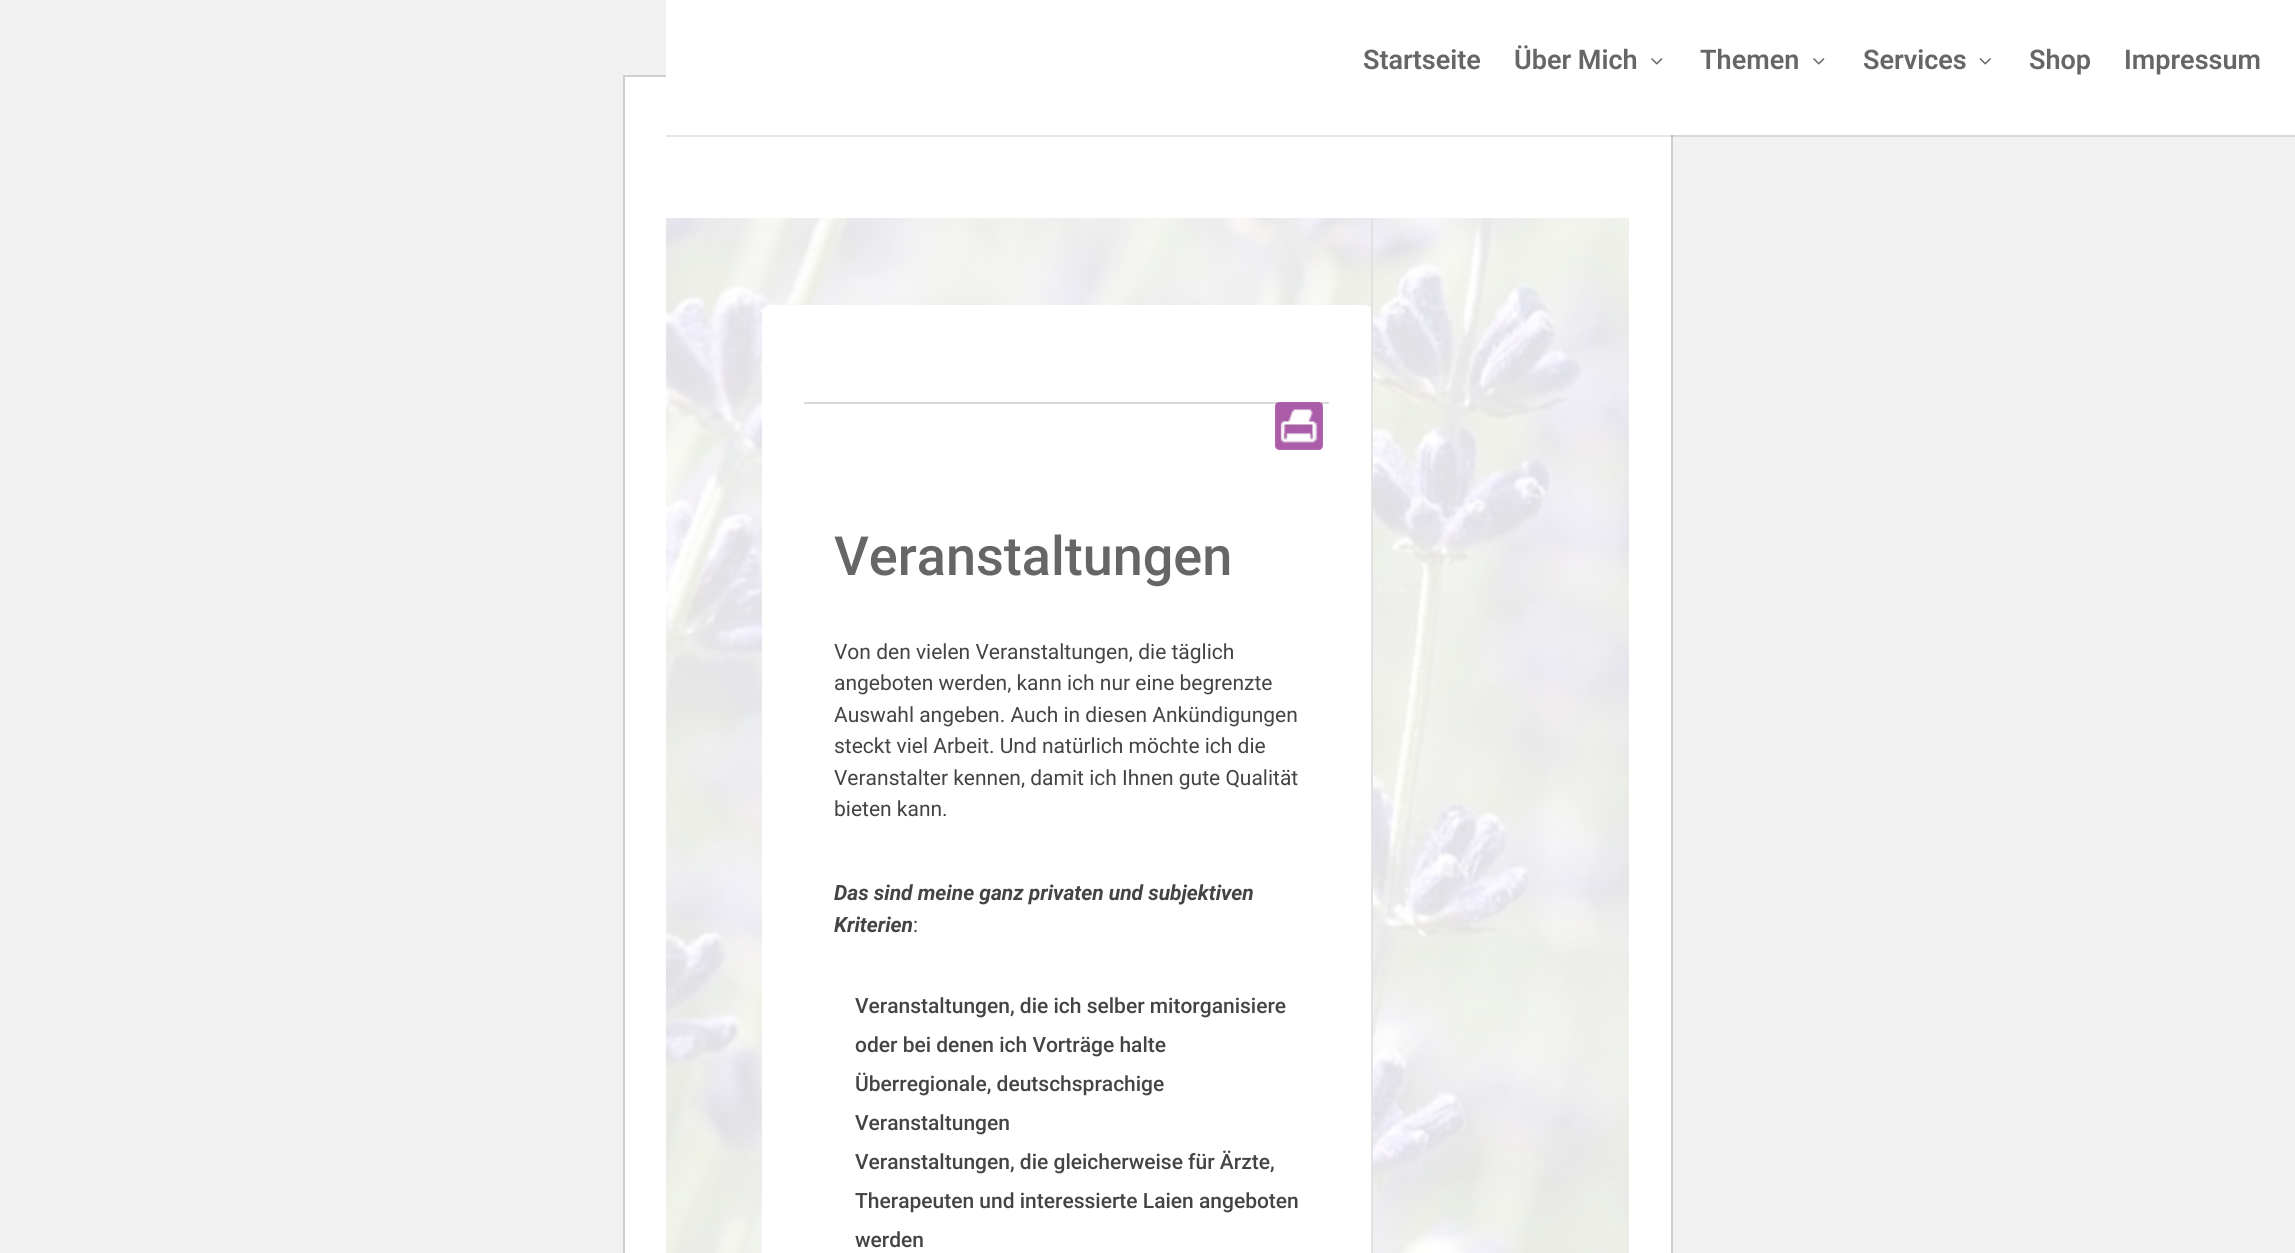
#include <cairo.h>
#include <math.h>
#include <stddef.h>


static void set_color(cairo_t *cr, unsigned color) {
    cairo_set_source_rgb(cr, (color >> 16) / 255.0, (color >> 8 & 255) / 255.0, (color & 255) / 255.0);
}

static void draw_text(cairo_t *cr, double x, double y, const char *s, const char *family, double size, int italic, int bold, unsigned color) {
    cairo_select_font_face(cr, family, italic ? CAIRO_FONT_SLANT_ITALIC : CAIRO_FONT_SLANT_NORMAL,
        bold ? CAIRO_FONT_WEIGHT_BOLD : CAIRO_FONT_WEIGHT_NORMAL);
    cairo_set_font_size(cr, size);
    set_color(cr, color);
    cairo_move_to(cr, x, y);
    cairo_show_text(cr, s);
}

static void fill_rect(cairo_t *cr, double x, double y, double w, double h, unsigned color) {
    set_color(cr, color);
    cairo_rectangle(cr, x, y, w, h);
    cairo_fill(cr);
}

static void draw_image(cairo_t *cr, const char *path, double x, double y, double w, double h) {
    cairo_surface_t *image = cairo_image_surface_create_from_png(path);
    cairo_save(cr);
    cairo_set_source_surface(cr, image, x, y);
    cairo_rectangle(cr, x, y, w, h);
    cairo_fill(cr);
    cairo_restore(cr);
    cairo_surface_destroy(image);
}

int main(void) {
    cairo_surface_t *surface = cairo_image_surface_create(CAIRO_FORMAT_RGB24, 2295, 1253);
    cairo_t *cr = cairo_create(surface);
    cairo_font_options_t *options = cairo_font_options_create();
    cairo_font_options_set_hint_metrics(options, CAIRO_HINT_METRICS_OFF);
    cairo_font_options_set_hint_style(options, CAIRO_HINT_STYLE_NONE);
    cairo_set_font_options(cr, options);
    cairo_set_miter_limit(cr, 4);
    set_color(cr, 0xF1F1F1);
    cairo_paint(cr);
    set_color(cr, 0xFFFFFF);
    cairo_rectangle(cr, 624, 76, 1048, 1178);
    cairo_fill_preserve(cr);
    set_color(cr, 0xCCD0D4);
    cairo_stroke(cr);
    cairo_set_source_rgba(cr, 0, 0, 0, 0.1);
    cairo_rectangle(cr, 666, 135, 1629, 2);
    cairo_fill(cr);
    fill_rect(cr, 666, 0, 1629, 135, 0xFFFFFF);
    draw_text(cr, 1363, 69, "Startseite", "Roboto SemiBold", 27, 0, 0, 0x666666);
    draw_text(cr, 1514, 69, "Über Mich", "Roboto SemiBold", 27, 0, 0, 0x666666);
    draw_image(cr, "assets/img1.png", 1651, 58, 12, 7);
    draw_text(cr, 1700, 69, "Themen", "Roboto SemiBold", 27, 0, 0, 0x666666);
    draw_image(cr, "assets/img1.png", 1813, 58, 12, 7);
    draw_text(cr, 1863, 69, "Services", "Roboto SemiBold", 27, 0, 0, 0x666666);
    draw_image(cr, "assets/img2.png", 1979, 58, 12, 7);
    draw_text(cr, 2029, 69, "Shop", "Roboto SemiBold", 27, 0, 0, 0x666666);
    draw_text(cr, 2124, 69, "Impressum", "Roboto SemiBold", 27, 0, 0, 0x666666);
    draw_image(cr, "assets/img3.png", 666, 218, 963, 1035);
    set_color(cr, 0xFFFFFF);
    cairo_new_path(cr);
    cairo_move_to(cr, 771, 305);
    cairo_line_to(cr, 1364, 305);
    cairo_curve_to(cr, 1369, 305, 1373, 309, 1373, 314);
    cairo_line_to(cr, 1373, 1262);
    cairo_line_to(cr, 762, 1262);
    cairo_line_to(cr, 762, 314);
    cairo_curve_to(cr, 762, 309, 766, 305, 771, 305);
    cairo_close_path(cr);
    cairo_fill(cr);
    fill_rect(cr, 804, 402, 525, 2, 0xDADADA);
    draw_image(cr, "assets/img4.png", 1275, 402, 48, 48);
    draw_text(cr, 834, 575, "Veranstaltungen", "Roboto Medium", 54, 0, 0, 0x666666);
    draw_text(cr, 834, 659, "Von den vielen Veranstaltungen, die täglich", "Roboto", 21, 0, 0, 0x444444);
    draw_text(cr, 834, 690, "angeboten werden, kann ich nur eine begrenzte", "Roboto", 21, 0, 0, 0x444444);
    draw_text(cr, 834, 722, "Auswahl angeben. Auch in diesen Ankündigungen", "Roboto", 21, 0, 0, 0x444444);
    draw_text(cr, 834, 753, "steckt viel Arbeit. Und natürlich möchte ich die", "Roboto", 21, 0, 0, 0x444444);
    draw_text(cr, 834, 785, "Veranstalter kennen, damit ich Ihnen gute Qualität", "Roboto", 21, 0, 0, 0x444444);
    draw_text(cr, 834, 816, "bieten kann.", "Roboto", 21, 0, 0, 0x444444);
    draw_text(cr, 834, 900, "Das sind meine ganz privaten und subjektiven", "Roboto", 21, 1, 1, 0x444444);
    draw_text(cr, 834, 932, "Kriterien", "Roboto", 21, 1, 1, 0x444444);
    draw_text(cr, 913, 932, ":", "Roboto", 21, 0, 0, 0x444444);
    draw_text(cr, 855, 1013, "Veranstaltungen, die ich selber mitorganisiere", "Roboto Medium", 21, 0, 0, 0x444444);
    draw_text(cr, 855, 1052, "oder bei denen ich Vorträge halte", "Roboto Medium", 21, 0, 0, 0x444444);
    draw_text(cr, 855, 1091, "Überregionale, deutschsprachige", "Roboto Medium", 21, 0, 0, 0x444444);
    draw_text(cr, 855, 1130, "Veranstaltungen", "Roboto Medium", 21, 0, 0, 0x444444);
    draw_text(cr, 855, 1169, "Veranstaltungen, die gleicherweise für Ärzte,", "Roboto Medium", 21, 0, 0, 0x444444);
    draw_text(cr, 855, 1208, "Therapeuten und interessierte Laien angeboten", "Roboto Medium", 21, 0, 0, 0x444444);
    draw_text(cr, 855, 1247, "werden", "Roboto Medium", 21, 0, 0, 0x444444);
    fill_rect(cr, 1371, 218, 2, 1035, 0xE2E2E2);
    cairo_surface_write_to_png(surface, "output.png");
    cairo_font_options_destroy(options);
    cairo_destroy(cr);
    cairo_surface_destroy(surface);
    return 0;
}
